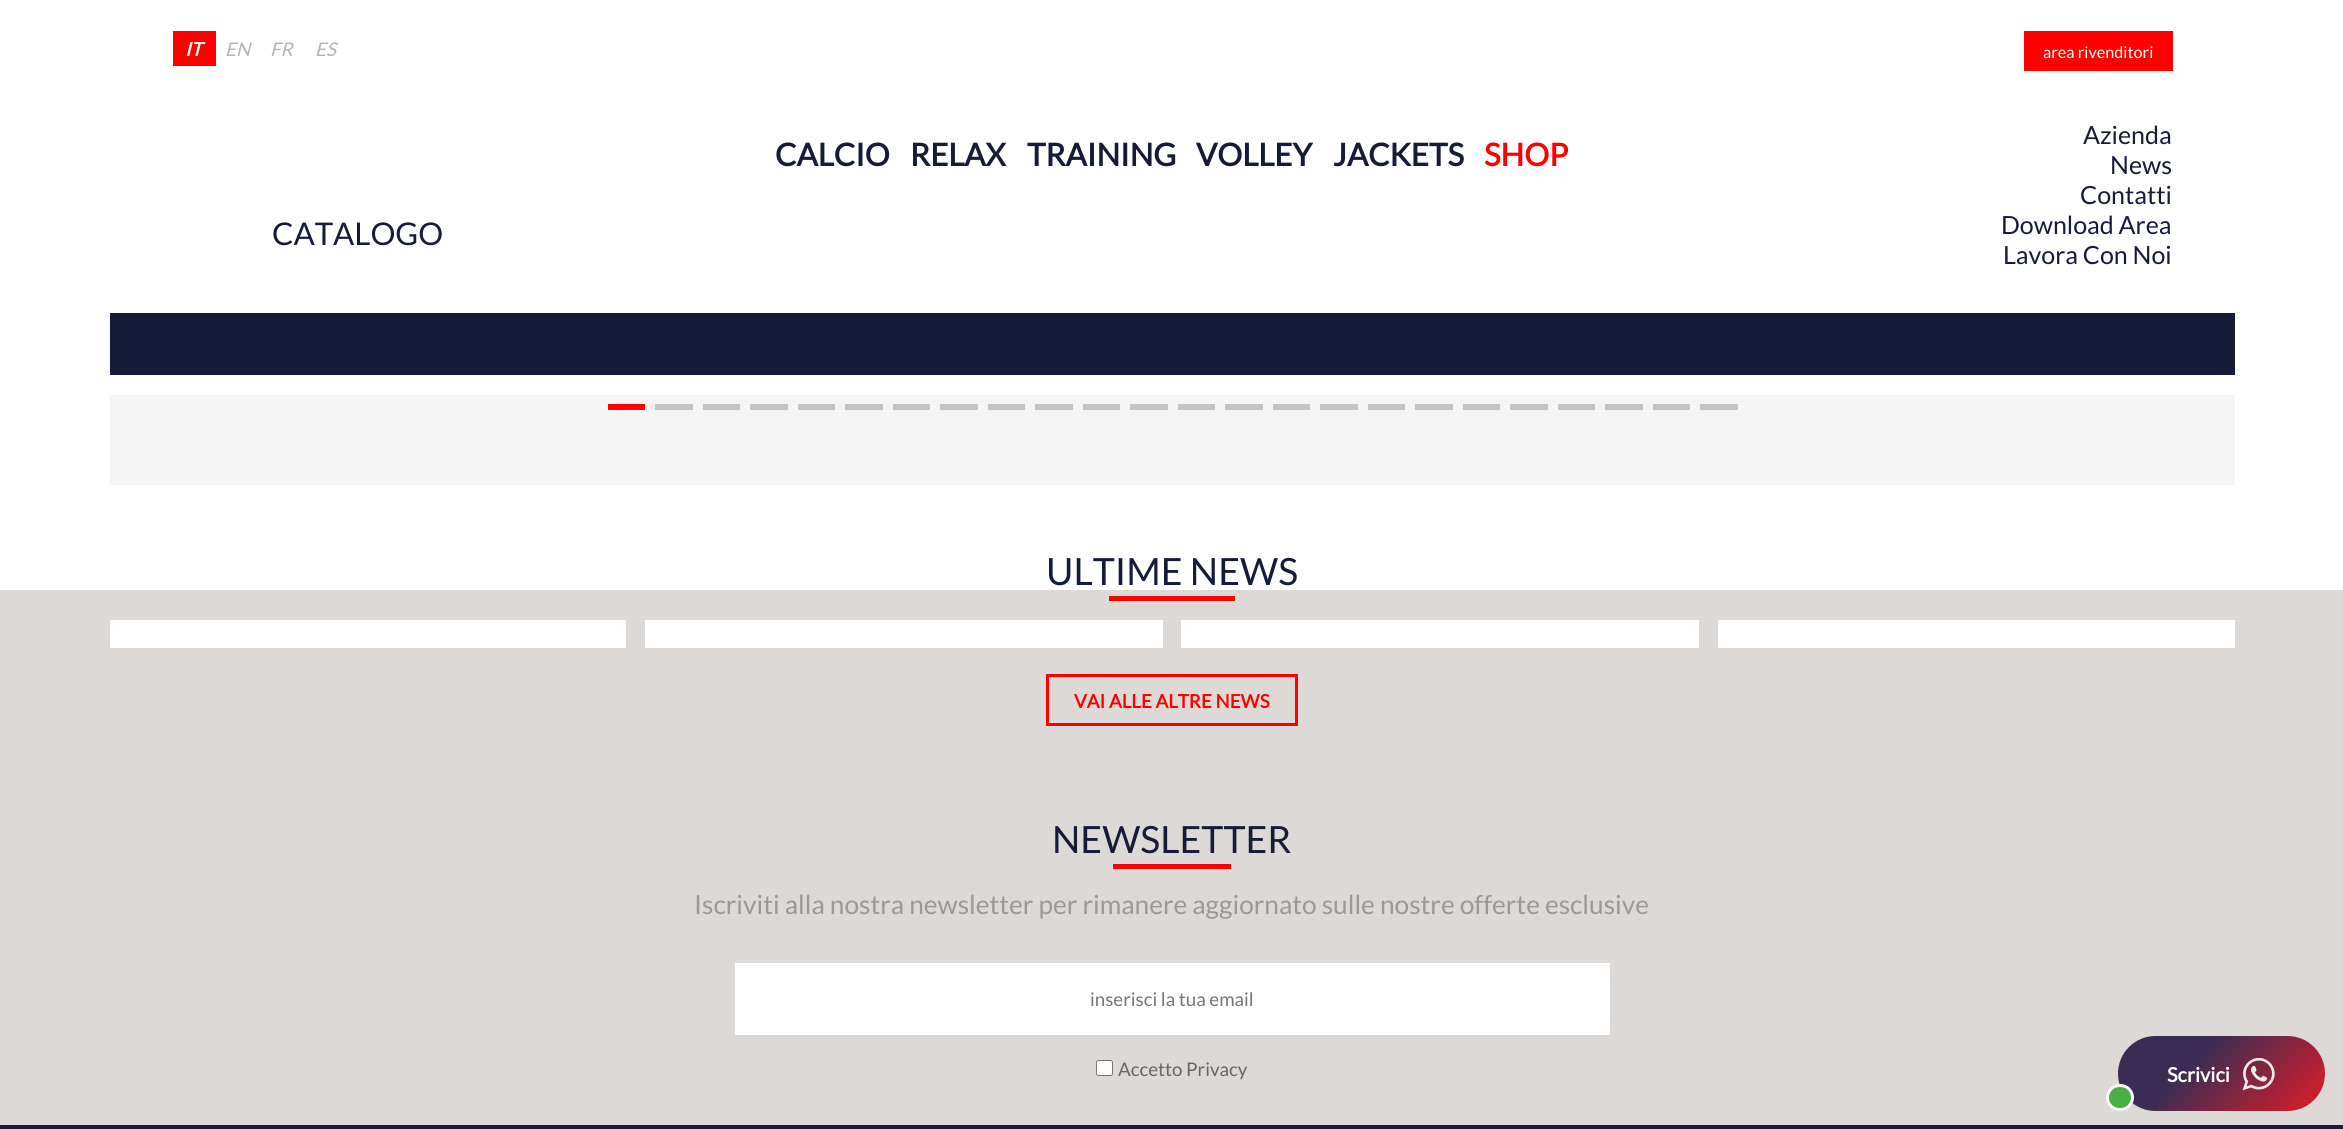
#include <cairo.h>
#include <math.h>
#include <stddef.h>


static void set_color(cairo_t *cr, unsigned color) {
    cairo_set_source_rgb(cr, (color >> 16) / 255.0, (color >> 8 & 255) / 255.0, (color & 255) / 255.0);
}

static void draw_text(cairo_t *cr, double x, double y, const char *s, const char *family, double size, int italic, int bold, unsigned color) {
    cairo_select_font_face(cr, family, italic ? CAIRO_FONT_SLANT_ITALIC : CAIRO_FONT_SLANT_NORMAL,
        bold ? CAIRO_FONT_WEIGHT_BOLD : CAIRO_FONT_WEIGHT_NORMAL);
    cairo_set_font_size(cr, size);
    set_color(cr, color);
    cairo_move_to(cr, x, y);
    cairo_show_text(cr, s);
}

static void fill_rect(cairo_t *cr, double x, double y, double w, double h, unsigned color) {
    set_color(cr, color);
    cairo_rectangle(cr, x, y, w, h);
    cairo_fill(cr);
}

static void rounded_rect(cairo_t *cr, double x, double y, double w, double h, double r) {
    cairo_new_sub_path(cr);
    cairo_arc(cr, x + w - r, y + h - r, r, 0, M_PI / 2);
    cairo_arc(cr, x + r, y + h - r, r, M_PI / 2, M_PI);
    cairo_arc(cr, x + r, y + r, r, M_PI, 1.5 * M_PI);
    cairo_arc(cr, x + w - r, y + r, r, 1.5 * M_PI, 2 * M_PI);
    cairo_close_path(cr);
}

static void draw_image(cairo_t *cr, const char *path, double x, double y, double w, double h) {
    cairo_surface_t *image = cairo_image_surface_create_from_png(path);
    cairo_save(cr);
    cairo_set_source_surface(cr, image, x, y);
    cairo_rectangle(cr, x, y, w, h);
    cairo_fill(cr);
    cairo_restore(cr);
    cairo_surface_destroy(image);
}

int main(void) {
    cairo_surface_t *surface = cairo_image_surface_create(CAIRO_FORMAT_RGB24, 2343, 1129);
    cairo_t *cr = cairo_create(surface);
    cairo_font_options_t *options = cairo_font_options_create();
    cairo_font_options_set_hint_metrics(options, CAIRO_HINT_METRICS_OFF);
    cairo_font_options_set_hint_style(options, CAIRO_HINT_STYLE_NONE);
    cairo_set_font_options(cr, options);
    cairo_set_miter_limit(cr, 4);
    cairo_pattern_t *gradient;
    set_color(cr, 0xFFFFFF);
    cairo_paint(cr);
    fill_rect(cr, 173, 31, 43, 35, 0xFF0000);
    draw_text(cr, 185, 56, "IT", "Lato", 18.75, 1, 1, 0xFFFFFF);
    draw_text(cr, 225, 56, "EN", "Lato", 18.75, 1, 0, 0xB4B4B4);
    draw_text(cr, 270, 56, "FR", "Lato", 18.75, 1, 0, 0xB4B4B4);
    draw_text(cr, 315, 56, "ES", "Lato", 18.75, 1, 0, 0xB4B4B4);
    fill_rect(cr, 2024, 31, 149, 40, 0xFF0000);
    draw_text(cr, 2043, 58, "area rivenditori", "Lato", 16.25, 0, 0, 0xFFFFFF);
    draw_text(cr, 775, 166, "CALCIO", "Lato", 31.25, 0, 1, 0x161B38);
    draw_text(cr, 910, 166, "RELAX", "Lato", 31.25, 0, 1, 0x161B38);
    draw_text(cr, 1027, 166, "TRAINING", "Lato", 31.25, 0, 1, 0x161B38);
    draw_text(cr, 1196, 166, "VOLLEY", "Lato", 31.25, 0, 1, 0x161B38);
    draw_text(cr, 1333, 166, "JACKETS", "Lato", 31.25, 0, 1, 0x161B38);
    draw_text(cr, 1484, 166, "SHOP", "Lato", 31.25, 0, 1, 0xFF0000);
    draw_text(cr, 2083, 144, "Azienda", "Lato", 25, 0, 0, 0x161B38);
    draw_text(cr, 2110, 174, "News", "Lato", 25, 0, 0, 0x161B38);
    draw_text(cr, 2080, 204, "Contatti", "Lato", 25, 0, 0, 0x161B38);
    draw_text(cr, 2001, 234, "Download Area", "Lato", 25, 0, 0, 0x161B38);
    draw_text(cr, 2003, 264, "Lavora Con Noi", "Lato", 25, 0, 0, 0x161B38);
    draw_text(cr, 272, 245, "CATALOGO", "Lato", 31.25, 0, 0, 0x161B38);
    fill_rect(cr, 110, 313, 2125, 62, 0x161B38);
    fill_rect(cr, 110, 395, 2125, 90, 0xF5F5F5);
    fill_rect(cr, 608, 404, 37, 6, 0xFF0000);
    fill_rect(cr, 655, 404, 38, 6, 0xC4C4C4);
    fill_rect(cr, 703, 404, 37, 6, 0xC4C4C4);
    fill_rect(cr, 750, 404, 38, 6, 0xC4C4C4);
    fill_rect(cr, 798, 404, 37, 6, 0xC4C4C4);
    fill_rect(cr, 845, 404, 38, 6, 0xC4C4C4);
    fill_rect(cr, 893, 404, 37, 6, 0xC4C4C4);
    fill_rect(cr, 940, 404, 38, 6, 0xC4C4C4);
    fill_rect(cr, 988, 404, 37, 6, 0xC4C4C4);
    fill_rect(cr, 1035, 404, 38, 6, 0xC4C4C4);
    fill_rect(cr, 1083, 404, 37, 6, 0xC4C4C4);
    fill_rect(cr, 1130, 404, 38, 6, 0xC4C4C4);
    fill_rect(cr, 1178, 404, 37, 6, 0xC4C4C4);
    fill_rect(cr, 1225, 404, 38, 6, 0xC4C4C4);
    fill_rect(cr, 1273, 404, 37, 6, 0xC4C4C4);
    fill_rect(cr, 1320, 404, 38, 6, 0xC4C4C4);
    fill_rect(cr, 1368, 404, 37, 6, 0xC4C4C4);
    fill_rect(cr, 1415, 404, 38, 6, 0xC4C4C4);
    fill_rect(cr, 1463, 404, 37, 6, 0xC4C4C4);
    fill_rect(cr, 1510, 404, 38, 6, 0xC4C4C4);
    fill_rect(cr, 1558, 404, 37, 6, 0xC4C4C4);
    fill_rect(cr, 1605, 404, 38, 6, 0xC4C4C4);
    fill_rect(cr, 1653, 404, 37, 6, 0xC4C4C4);
    fill_rect(cr, 1700, 404, 38, 6, 0xC4C4C4);
    draw_text(cr, 1046, 585, "ULTIME NEWS", "Lato", 37.5, 0, 0, 0x161B38);
    fill_rect(cr, 0, 590, 2343, 535, 0xDDD9D6);
    fill_rect(cr, 1109, 596, 126, 5, 0xFF0000);
    fill_rect(cr, 110, 620, 516, 28, 0xFFFFFF);
    fill_rect(cr, 645, 620, 518, 28, 0xFFFFFF);
    fill_rect(cr, 1181, 620, 518, 28, 0xFFFFFF);
    fill_rect(cr, 1718, 620, 517, 28, 0xFFFFFF);
    cairo_rectangle(cr, 1047.5, 675.5, 249, 49);
    set_color(cr, 0xFF0000);
    cairo_set_line_width(cr, 3);
    cairo_stroke(cr);
    draw_text(cr, 1074, 708, "VAI ALLE ALTRE NEWS", "Lato", 18.75, 0, 1, 0xFF0000);
    draw_text(cr, 1052, 853, "NEWSLETTER", "Lato", 37.5, 0, 0, 0x161B38);
    fill_rect(cr, 1113, 864, 118, 5, 0xFF0000);
    draw_text(cr, 694, 914, "Iscriviti alla nostra newsletter per rimanere aggiornato sulle nostre offerte esclusive", "Lato", 26.25, 0, 0, 0x999999);
    fill_rect(cr, 735, 963, 875, 72, 0xFFFFFF);
    fill_rect(cr, 735, 1035, 875, 3, 0xD8D8D8);
    draw_text(cr, 1090, 1006, "inserisci la tua email", "Lato", 18.75, 0, 0, 0x757575);
    set_color(cr, 0xFFFFFF);
    rounded_rect(cr, 1096.5, 1060.5, 16, 15, 2);
    cairo_fill_preserve(cr);
    set_color(cr, 0x767676);
    cairo_set_line_width(cr, 1);
    cairo_stroke(cr);
    draw_text(cr, 1118, 1076, "Accetto Privacy", "Lato", 18.75, 0, 0, 0x666666);
    gradient = cairo_pattern_create_linear(2151, 1003, 2292, 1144);
    cairo_pattern_add_color_stop_rgba(gradient, 0.35, 0.231, 0.173, 0.329, 1);
    cairo_pattern_add_color_stop_rgba(gradient, 1, 0.886, 0.11, 0.153, 1);
    cairo_set_source(cr, gradient);
    cairo_pattern_destroy(gradient);
    rounded_rect(cr, 2118, 1036, 207, 75, 37.5);
    cairo_fill(cr);
    draw_text(cr, 2167, 1082, "Scrivici", "Lato", 20, 0, 1, 0xFFFFFF);
    draw_image(cr, "assets/img1.png", 2242, 1057, 33, 34);
    set_color(cr, 0x4AAF45);
    rounded_rect(cr, 2107.5, 1085.5, 25, 24, 12);
    cairo_fill_preserve(cr);
    set_color(cr, 0xFCFBFB);
    cairo_set_line_width(cr, 3);
    cairo_stroke(cr);
    fill_rect(cr, 0, 1125, 2343, 4, 0x161B38);
    cairo_surface_write_to_png(surface, "output.png");
    cairo_font_options_destroy(options);
    cairo_destroy(cr);
    cairo_surface_destroy(surface);
    return 0;
}
